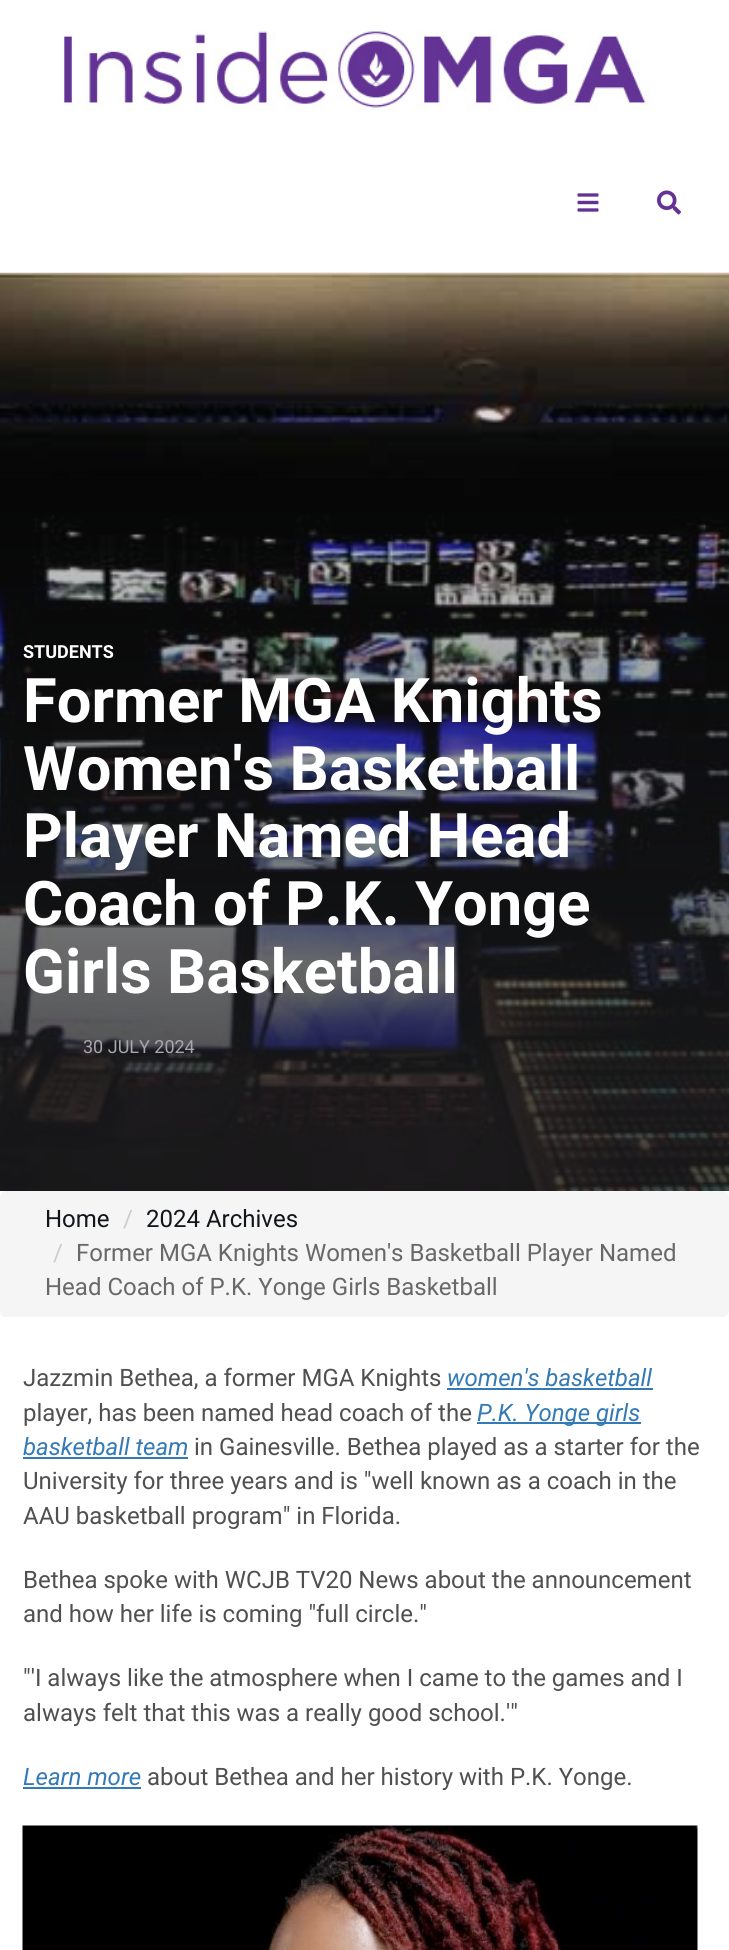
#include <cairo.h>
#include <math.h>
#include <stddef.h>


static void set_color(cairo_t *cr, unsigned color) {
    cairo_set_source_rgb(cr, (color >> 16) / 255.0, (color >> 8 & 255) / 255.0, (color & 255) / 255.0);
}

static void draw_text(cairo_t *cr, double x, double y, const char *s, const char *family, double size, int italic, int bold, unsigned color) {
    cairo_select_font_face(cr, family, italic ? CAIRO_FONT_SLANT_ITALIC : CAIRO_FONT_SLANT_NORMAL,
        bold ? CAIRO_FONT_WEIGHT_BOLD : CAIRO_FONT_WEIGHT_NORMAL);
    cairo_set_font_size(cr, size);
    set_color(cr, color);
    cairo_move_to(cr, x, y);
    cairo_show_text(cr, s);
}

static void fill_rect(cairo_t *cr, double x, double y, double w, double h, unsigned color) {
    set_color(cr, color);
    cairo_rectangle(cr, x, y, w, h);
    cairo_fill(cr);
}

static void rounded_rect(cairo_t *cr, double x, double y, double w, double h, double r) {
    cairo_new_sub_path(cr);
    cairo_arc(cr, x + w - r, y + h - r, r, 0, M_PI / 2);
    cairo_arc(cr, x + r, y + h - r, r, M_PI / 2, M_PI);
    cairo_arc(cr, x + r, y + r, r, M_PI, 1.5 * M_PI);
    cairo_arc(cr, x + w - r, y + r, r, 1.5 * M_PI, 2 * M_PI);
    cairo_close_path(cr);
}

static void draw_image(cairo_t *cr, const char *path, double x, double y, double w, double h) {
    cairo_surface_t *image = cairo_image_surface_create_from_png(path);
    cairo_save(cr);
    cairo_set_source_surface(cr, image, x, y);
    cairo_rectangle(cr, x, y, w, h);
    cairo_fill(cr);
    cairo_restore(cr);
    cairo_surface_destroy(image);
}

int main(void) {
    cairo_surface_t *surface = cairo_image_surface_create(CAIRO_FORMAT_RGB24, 729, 1950);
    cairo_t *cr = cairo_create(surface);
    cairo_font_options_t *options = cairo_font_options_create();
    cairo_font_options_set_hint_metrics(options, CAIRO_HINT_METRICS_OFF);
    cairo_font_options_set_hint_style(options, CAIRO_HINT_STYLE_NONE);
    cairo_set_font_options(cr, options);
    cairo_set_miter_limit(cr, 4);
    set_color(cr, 0xFFFFFF);
    cairo_paint(cr);
    fill_rect(cr, 0, 272, 729, 1, 0xE8EAED);
    draw_image(cr, "assets/img1.png", 63, 30, 586, 81);
    draw_image(cr, "assets/img2.png", 577, 193, 22, 19);
    draw_image(cr, "assets/img3.png", 657, 190, 24, 25);
    draw_image(cr, "assets/img4.png", 0, 273, 729, 918);
    draw_text(cr, 23, 658, "STUDENTS", "Roboto", 18, 0, 1, 0xFFFFFF);
    draw_text(cr, 23, 722, "Former MGA Knights", "Roboto", 61.5, 0, 1, 0xFFFFFF);
    draw_text(cr, 23, 790, "Women's Basketball", "Roboto", 61.5, 0, 1, 0xFFFFFF);
    draw_text(cr, 23, 857, "Player Named Head", "Roboto", 61.5, 0, 1, 0xFFFFFF);
    draw_text(cr, 23, 925, "Coach of P.K. Yonge", "Roboto", 61.5, 0, 1, 0xFFFFFF);
    draw_text(cr, 23, 993, "Girls Basketball", "Roboto", 61.5, 0, 1, 0xFFFFFF);
    draw_text(cr, 83, 1053, "30 JULY 2024", "Roboto", 18, 0, 0, 0xA7A8AB);
    set_color(cr, 0xF5F5F5);
    rounded_rect(cr, 0, 1191, 729, 126, 6);
    cairo_fill(cr);
    draw_text(cr, 45, 1227, "Home", "Roboto", 24, 0, 0, 0x11151C);
    draw_text(cr, 123, 1227, "/", "Roboto", 24, 0, 0, 0xCCCCCC);
    draw_text(cr, 146, 1227, "2024 Archives", "Roboto", 24, 0, 0, 0x11151C);
    draw_text(cr, 53, 1261, "/", "Roboto", 24, 0, 0, 0xCCCCCC);
    draw_text(cr, 76, 1261, "Former MGA Knights Women's Basketball Player Named", "Roboto", 24, 0, 0, 0x686868);
    draw_text(cr, 45, 1295, "Head Coach of P.K. Yonge Girls Basketball", "Roboto", 24, 0, 0, 0x686868);
    draw_text(cr, 23, 1386, "Jazzmin Bethea, a former MGA Knights", "Roboto", 24, 0, 0, 0x505050);
    draw_text(cr, 447, 1386, "women's basketball", "Roboto", 24, 1, 0, 0x337AB7);
    fill_rect(cr, 447, 1388, 206, 2, 0x337AB7);
    draw_text(cr, 23, 1421, "player, has been named head coach of the", "Roboto", 24, 0, 0, 0x505050);
    fill_rect(cr, 477, 1422, 164, 2, 0x337AB7);
    draw_text(cr, 477, 1421, "P.K. Yonge girls", "Roboto", 24, 1, 0, 0x337AB7);
    draw_text(cr, 23, 1455, "basketball team", "Roboto", 24, 1, 0, 0x337AB7);
    fill_rect(cr, 23, 1457, 165, 2, 0x337AB7);
    draw_text(cr, 194, 1455, "in Gainesville. Bethea played as a starter for the", "Roboto", 24, 0, 0, 0x505050);
    draw_text(cr, 23, 1489, "University for three years and is \"well known as a coach in the", "Roboto", 24, 0, 0, 0x505050);
    draw_text(cr, 23, 1524, "AAU basketball program\" in Florida.", "Roboto", 24, 0, 0, 0x505050);
    draw_text(cr, 23, 1588, "Bethea spoke with WCJB TV20 News about the announcement", "Roboto", 24, 0, 0, 0x505050);
    draw_text(cr, 23, 1622, "and how her life is coming \"full circle.\"", "Roboto", 24, 0, 0, 0x505050);
    draw_text(cr, 23, 1686, "\"'I always like the atmosphere when I came to the games and I", "Roboto", 24, 0, 0, 0x505050);
    draw_text(cr, 23, 1721, "always felt that this was a really good school.'\"", "Roboto", 24, 0, 0, 0x505050);
    draw_text(cr, 23, 1785, "Learn more", "Roboto", 24, 1, 0, 0x337AB7);
    fill_rect(cr, 23, 1787, 118, 2, 0x337AB7);
    draw_text(cr, 147, 1785, "about Bethea and her history with P.K. Yonge.", "Roboto", 24, 0, 0, 0x505050);
    draw_image(cr, "assets/img5.png", 22, 1825, 676, 125);
    cairo_surface_write_to_png(surface, "output.png");
    cairo_font_options_destroy(options);
    cairo_destroy(cr);
    cairo_surface_destroy(surface);
    return 0;
}
